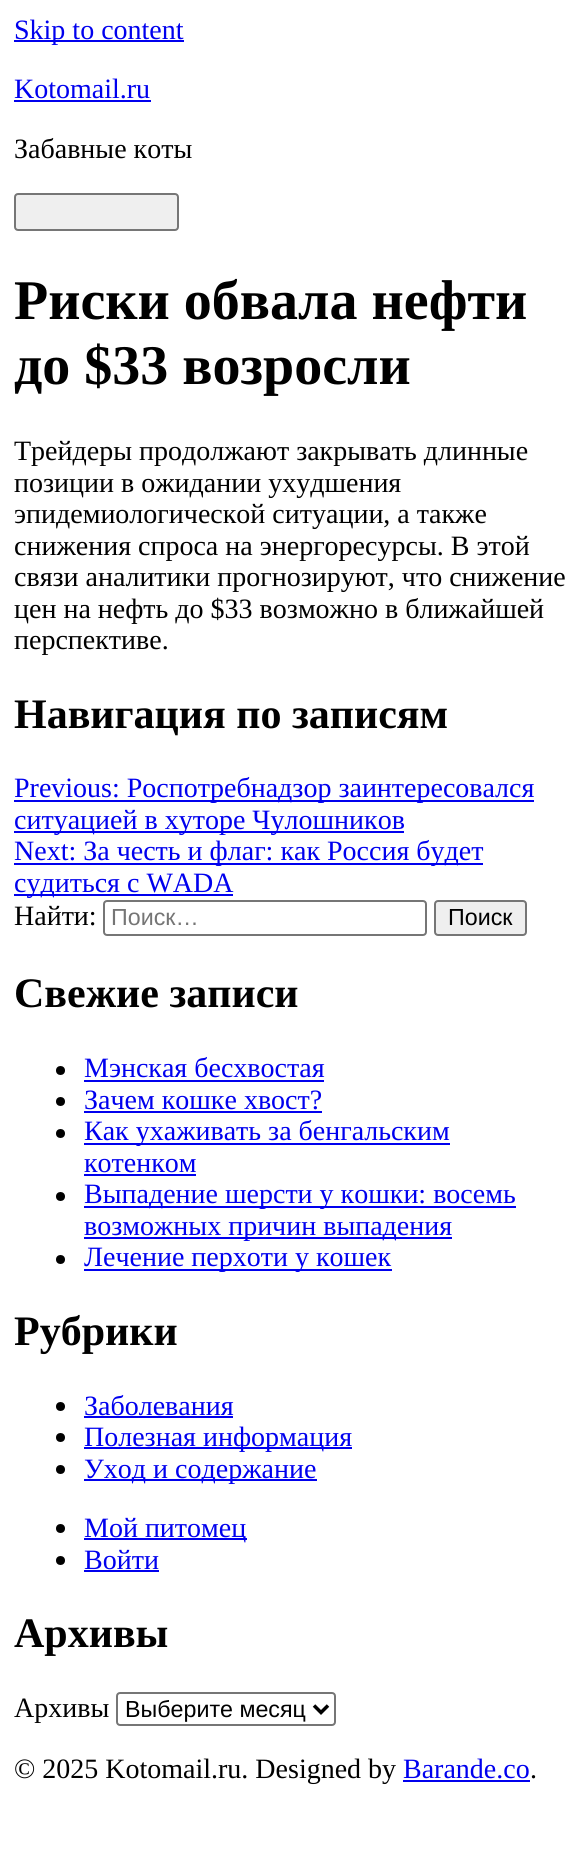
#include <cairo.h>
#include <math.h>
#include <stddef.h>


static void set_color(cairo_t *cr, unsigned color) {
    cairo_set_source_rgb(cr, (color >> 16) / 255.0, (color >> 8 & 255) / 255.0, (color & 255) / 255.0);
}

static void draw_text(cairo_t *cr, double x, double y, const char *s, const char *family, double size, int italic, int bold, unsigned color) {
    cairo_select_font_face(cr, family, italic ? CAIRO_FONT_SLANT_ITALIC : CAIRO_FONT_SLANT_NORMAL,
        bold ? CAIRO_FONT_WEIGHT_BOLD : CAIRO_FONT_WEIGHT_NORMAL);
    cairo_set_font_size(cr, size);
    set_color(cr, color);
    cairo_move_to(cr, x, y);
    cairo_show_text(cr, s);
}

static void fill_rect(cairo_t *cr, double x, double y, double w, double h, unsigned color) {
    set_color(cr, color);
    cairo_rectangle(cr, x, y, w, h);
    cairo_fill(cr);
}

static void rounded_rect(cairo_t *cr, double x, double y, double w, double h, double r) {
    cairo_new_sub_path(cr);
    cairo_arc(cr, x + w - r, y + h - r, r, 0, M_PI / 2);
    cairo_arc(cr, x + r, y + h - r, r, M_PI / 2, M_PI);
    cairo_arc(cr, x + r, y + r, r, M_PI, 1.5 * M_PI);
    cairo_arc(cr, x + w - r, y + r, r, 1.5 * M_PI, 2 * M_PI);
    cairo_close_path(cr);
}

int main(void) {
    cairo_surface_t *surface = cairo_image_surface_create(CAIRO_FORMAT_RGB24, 580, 1867);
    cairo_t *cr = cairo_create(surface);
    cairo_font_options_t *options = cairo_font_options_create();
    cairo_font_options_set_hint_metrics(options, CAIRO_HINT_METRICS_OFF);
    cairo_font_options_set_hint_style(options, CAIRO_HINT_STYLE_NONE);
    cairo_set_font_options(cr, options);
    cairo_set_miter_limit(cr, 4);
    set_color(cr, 0xFFFFFF);
    cairo_paint(cr);
    fill_rect(cr, 14, 40, 170, 2, 0x0000EE);
    draw_text(cr, 14, 39, "Skip to content", "Liberation Serif", 28, 0, 0, 0x0000EE);
    draw_text(cr, 14, 98, "Kotomail.ru", "Liberation Serif", 28, 0, 0, 0x0000EE);
    fill_rect(cr, 14, 100, 137, 2, 0x0000EE);
    draw_text(cr, 14, 158, "Забавные коты", "Liberation Serif", 28, 0, 0, 0x000000);
    set_color(cr, 0xEFEFEF);
    rounded_rect(cr, 15, 194, 163, 36, 3);
    cairo_fill_preserve(cr);
    set_color(cr, 0x767676);
    cairo_stroke(cr);
    draw_text(cr, 14, 319, "Риски обвала нефти", "Liberation Serif", 56, 0, 1, 0x000000);
    draw_text(cr, 14, 384, "до $33 возросли", "Liberation Serif", 56, 0, 1, 0x000000);
    draw_text(cr, 14, 460, "Трейдеры продолжают закрывать длинные", "Liberation Serif", 28, 0, 0, 0x000000);
    draw_text(cr, 14, 492, "позиции в ожидании ухудшения", "Liberation Serif", 28, 0, 0, 0x000000);
    draw_text(cr, 14, 523, "эпидемиологической ситуации, а также", "Liberation Serif", 28, 0, 0, 0x000000);
    draw_text(cr, 14, 555, "снижения спроса на энергоресурсы. В этой", "Liberation Serif", 28, 0, 0, 0x000000);
    draw_text(cr, 14, 586, "связи аналитики прогнозируют, что снижение", "Liberation Serif", 28, 0, 0, 0x000000);
    draw_text(cr, 14, 618, "цен на нефть до $33 возможно в ближайшей", "Liberation Serif", 28, 0, 0, 0x000000);
    draw_text(cr, 14, 649, "перспективе.", "Liberation Serif", 28, 0, 0, 0x000000);
    draw_text(cr, 14, 728, "Навигация по записям", "Liberation Serif", 42, 0, 1, 0x000000);
    fill_rect(cr, 14, 800, 520, 2, 0x0000EE);
    draw_text(cr, 14, 797, "Previous: Роспотребнадзор заинтересовался", "Liberation Serif", 28, 0, 0, 0x0000EE);
    fill_rect(cr, 14, 831, 390, 2, 0x0000EE);
    draw_text(cr, 14, 829, "ситуацией в хуторе Чулошников", "Liberation Serif", 28, 0, 0, 0x0000EE);
    fill_rect(cr, 14, 863, 469, 2, 0x0000EE);
    draw_text(cr, 14, 860, "Next: За честь и флаг: как Россия будет", "Liberation Serif", 28, 0, 0, 0x0000EE);
    fill_rect(cr, 14, 894, 219, 2, 0x0000EE);
    draw_text(cr, 14, 892, "судиться с WADA", "Liberation Serif", 28, 0, 0, 0x0000EE);
    draw_text(cr, 14, 925, "Найти:", "Liberation Serif", 28, 0, 0, 0x000000);
    rounded_rect(cr, 104, 901, 322, 34, 3);
    set_color(cr, 0x767676);
    cairo_stroke(cr);
    draw_text(cr, 111, 925, "Поиск…", "Liberation Sans", 23.25, 0, 0, 0x757575);
    set_color(cr, 0xEFEFEF);
    rounded_rect(cr, 435, 901, 91, 34, 3);
    cairo_fill_preserve(cr);
    set_color(cr, 0x767676);
    cairo_stroke(cr);
    draw_text(cr, 448, 925, "Поиск", "Liberation Sans", 23.25, 0, 0, 0x000000);
    draw_text(cr, 14, 1007, "Свежие записи", "Liberation Serif", 42, 0, 1, 0x000000);
    cairo_new_path(cr);
    cairo_arc(cr, 60.5, 1070.5, 4.5, 0, 2 * M_PI);
    cairo_fill(cr);
    draw_text(cr, 84, 1077, "Мэнская бесхвостая", "Liberation Serif", 28, 0, 0, 0x0000EE);
    fill_rect(cr, 84, 1080, 240, 2, 0x0000EE);
    set_color(cr, 0x000000);
    cairo_new_path(cr);
    cairo_arc(cr, 60.5, 1101.5, 4.5, 0, 2 * M_PI);
    cairo_fill(cr);
    draw_text(cr, 84, 1109, "Зачем кошке хвост?", "Liberation Serif", 28, 0, 0, 0x0000EE);
    fill_rect(cr, 84, 1111, 238, 2, 0x0000EE);
    set_color(cr, 0x000000);
    cairo_new_path(cr);
    cairo_arc(cr, 60.5, 1133.5, 4.5, 0, 2 * M_PI);
    cairo_fill(cr);
    fill_rect(cr, 84, 1143, 366, 2, 0x0000EE);
    draw_text(cr, 84, 1140, "Как ухаживать за бенгальским", "Liberation Serif", 28, 0, 0, 0x0000EE);
    draw_text(cr, 84, 1172, "котенком", "Liberation Serif", 28, 0, 0, 0x0000EE);
    fill_rect(cr, 84, 1174, 112, 2, 0x0000EE);
    set_color(cr, 0x000000);
    cairo_new_path(cr);
    cairo_arc(cr, 60.5, 1196.5, 4.5, 0, 2 * M_PI);
    cairo_fill(cr);
    fill_rect(cr, 84, 1206, 432, 2, 0x0000EE);
    draw_text(cr, 84, 1203, "Выпадение шерсти у кошки: восемь", "Liberation Serif", 28, 0, 0, 0x0000EE);
    fill_rect(cr, 84, 1237, 368, 2, 0x0000EE);
    draw_text(cr, 84, 1235, "возможных причин выпадения", "Liberation Serif", 28, 0, 0, 0x0000EE);
    set_color(cr, 0x000000);
    cairo_new_path(cr);
    cairo_arc(cr, 60.5, 1259.5, 4.5, 0, 2 * M_PI);
    cairo_fill(cr);
    fill_rect(cr, 84, 1269, 308, 2, 0x0000EE);
    draw_text(cr, 84, 1266, "Лечение перхоти у кошек", "Liberation Serif", 28, 0, 0, 0x0000EE);
    draw_text(cr, 14, 1345, "Рубрики", "Liberation Serif", 42, 0, 1, 0x000000);
    cairo_new_path(cr);
    cairo_arc(cr, 60.5, 1406.5, 4.5, 0, 2 * M_PI);
    cairo_fill(cr);
    draw_text(cr, 84, 1415, "Заболевания", "Liberation Serif", 28, 0, 0, 0x0000EE);
    fill_rect(cr, 84, 1416, 149, 2, 0x0000EE);
    set_color(cr, 0x000000);
    cairo_new_path(cr);
    cairo_arc(cr, 60.5, 1437.5, 4.5, 0, 2 * M_PI);
    cairo_fill(cr);
    fill_rect(cr, 84, 1447, 268, 2, 0x0000EE);
    draw_text(cr, 84, 1446, "Полезная информация", "Liberation Serif", 28, 0, 0, 0x0000EE);
    set_color(cr, 0x000000);
    cairo_new_path(cr);
    cairo_arc(cr, 60.5, 1469.5, 4.5, 0, 2 * M_PI);
    cairo_fill(cr);
    fill_rect(cr, 84, 1479, 233, 2, 0x0000EE);
    draw_text(cr, 84, 1478, "Уход и содержание", "Liberation Serif", 28, 0, 0, 0x0000EE);
    set_color(cr, 0x000000);
    cairo_new_path(cr);
    cairo_arc(cr, 60.5, 1528.5, 4.5, 0, 2 * M_PI);
    cairo_fill(cr);
    fill_rect(cr, 84, 1538, 163, 2, 0x0000EE);
    draw_text(cr, 84, 1537, "Мой питомец", "Liberation Serif", 28, 0, 0, 0x0000EE);
    set_color(cr, 0x000000);
    cairo_new_path(cr);
    cairo_arc(cr, 60.5, 1560.5, 4.5, 0, 2 * M_PI);
    cairo_fill(cr);
    draw_text(cr, 84, 1569, "Войти", "Liberation Serif", 28, 0, 0, 0x0000EE);
    fill_rect(cr, 84, 1570, 75, 2, 0x0000EE);
    draw_text(cr, 14, 1647, "Архивы", "Liberation Serif", 42, 0, 1, 0x000000);
    draw_text(cr, 14, 1717, "Архивы", "Liberation Serif", 28, 0, 0, 0x000000);
    rounded_rect(cr, 117, 1693, 218, 32, 3);
    set_color(cr, 0x767676);
    cairo_stroke(cr);
    cairo_new_path(cr);
    cairo_move_to(cr, 314, 1705.5);
    cairo_line_to(cr, 321, 1712.5);
    cairo_line_to(cr, 328, 1705.5);
    set_color(cr, 0x000000);
    cairo_set_line_width(cr, 3.5);
    cairo_stroke(cr);
    draw_text(cr, 125, 1717, "Выберите месяц", "Liberation Sans", 23.25, 0, 0, 0x000000);
    draw_text(cr, 14, 1778, "© 2025 Kotomail.ru. Designed by", "Liberation Serif", 28, 0, 0, 0x000000);
    draw_text(cr, 403, 1778, "Barande.co", "Liberation Serif", 28, 0, 0, 0x0000EE);
    fill_rect(cr, 403, 1780, 127, 2, 0x0000EE);
    draw_text(cr, 530, 1778, ".", "Liberation Serif", 28, 0, 0, 0x000000);
    cairo_surface_write_to_png(surface, "output.png");
    cairo_font_options_destroy(options);
    cairo_destroy(cr);
    cairo_surface_destroy(surface);
    return 0;
}
